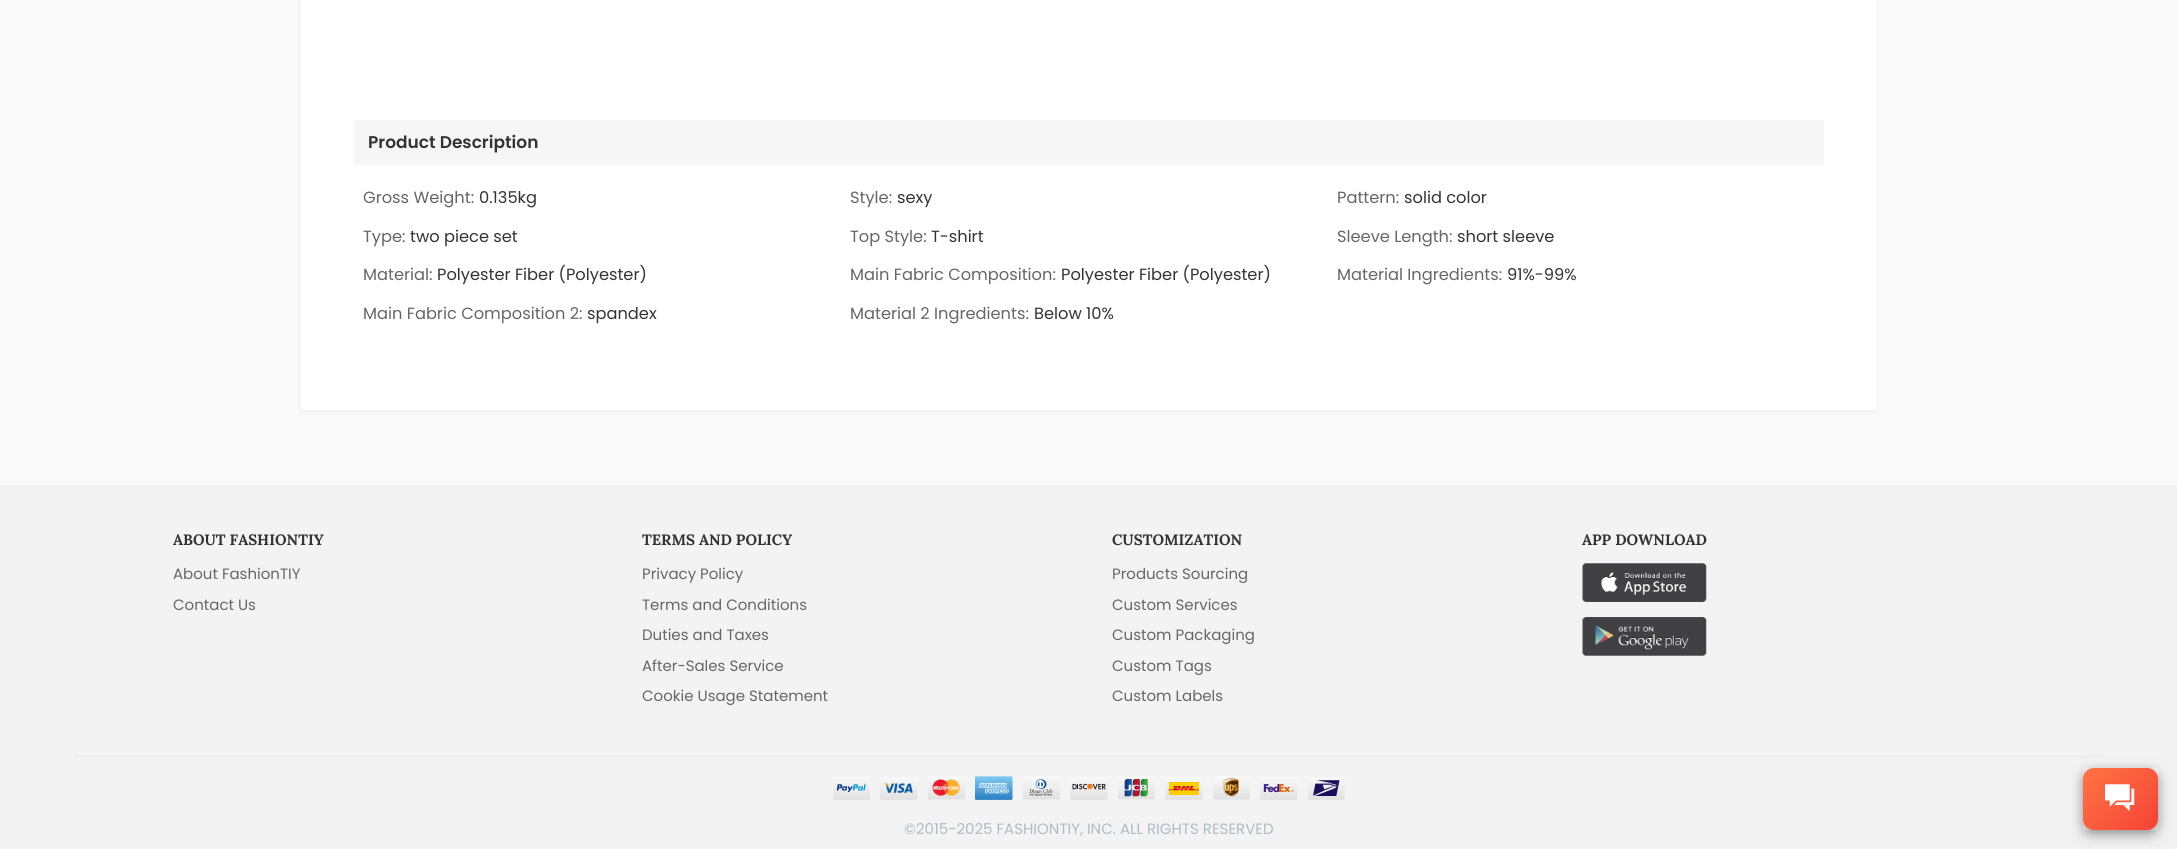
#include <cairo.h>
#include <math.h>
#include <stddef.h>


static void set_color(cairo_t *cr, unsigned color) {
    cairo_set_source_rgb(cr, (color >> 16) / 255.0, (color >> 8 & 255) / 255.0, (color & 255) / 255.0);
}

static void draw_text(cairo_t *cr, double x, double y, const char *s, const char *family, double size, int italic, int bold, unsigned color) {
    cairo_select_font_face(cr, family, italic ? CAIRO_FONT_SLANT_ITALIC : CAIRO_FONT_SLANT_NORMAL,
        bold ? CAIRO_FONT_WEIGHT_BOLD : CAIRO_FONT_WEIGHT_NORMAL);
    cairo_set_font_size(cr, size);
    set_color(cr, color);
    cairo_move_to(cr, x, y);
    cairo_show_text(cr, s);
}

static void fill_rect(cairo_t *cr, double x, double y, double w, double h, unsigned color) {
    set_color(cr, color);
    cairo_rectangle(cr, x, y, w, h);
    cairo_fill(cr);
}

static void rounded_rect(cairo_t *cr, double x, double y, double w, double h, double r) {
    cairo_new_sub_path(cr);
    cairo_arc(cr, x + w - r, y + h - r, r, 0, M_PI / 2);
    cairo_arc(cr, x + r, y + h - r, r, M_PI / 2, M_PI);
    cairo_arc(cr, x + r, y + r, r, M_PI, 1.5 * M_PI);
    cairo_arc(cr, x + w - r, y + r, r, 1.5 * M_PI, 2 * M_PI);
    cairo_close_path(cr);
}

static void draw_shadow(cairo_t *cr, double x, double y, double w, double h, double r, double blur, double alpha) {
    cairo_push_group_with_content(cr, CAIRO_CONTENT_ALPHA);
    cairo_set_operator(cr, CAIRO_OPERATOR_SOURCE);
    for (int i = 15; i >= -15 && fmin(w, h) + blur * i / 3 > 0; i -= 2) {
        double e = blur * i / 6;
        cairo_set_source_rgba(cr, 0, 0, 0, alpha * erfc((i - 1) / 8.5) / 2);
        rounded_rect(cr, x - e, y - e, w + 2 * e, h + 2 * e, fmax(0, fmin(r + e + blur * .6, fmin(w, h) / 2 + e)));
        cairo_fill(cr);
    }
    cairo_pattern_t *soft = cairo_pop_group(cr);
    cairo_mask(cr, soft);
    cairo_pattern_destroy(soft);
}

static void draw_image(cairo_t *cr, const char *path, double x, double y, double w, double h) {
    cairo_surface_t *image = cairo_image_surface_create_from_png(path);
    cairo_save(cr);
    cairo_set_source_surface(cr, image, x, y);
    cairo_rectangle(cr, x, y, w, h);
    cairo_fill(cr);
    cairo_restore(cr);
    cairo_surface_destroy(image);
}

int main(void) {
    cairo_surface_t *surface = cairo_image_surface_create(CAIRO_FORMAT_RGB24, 2177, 849);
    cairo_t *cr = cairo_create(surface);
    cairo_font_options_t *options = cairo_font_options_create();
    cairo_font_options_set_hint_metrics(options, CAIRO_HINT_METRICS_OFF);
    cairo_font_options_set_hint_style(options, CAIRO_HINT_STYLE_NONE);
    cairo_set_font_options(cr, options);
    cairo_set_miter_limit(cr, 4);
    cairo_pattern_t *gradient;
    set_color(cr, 0xFAFAFA);
    cairo_paint(cr);
    set_color(cr, 0x000000);
    draw_shadow(cr, 301, -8, 1575, 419, 0, 2.5, 0.05);
    fill_rect(cr, 301, 0, 1575, 410, 0xFFFFFF);
    fill_rect(cr, 354, 120, 1470, 45, 0xF6F6F6);
    draw_text(cr, 368, 148, "Product Description", "Poppins SemiBold", 17, 0, 0, 0x333333);
    draw_text(cr, 363, 203, "Gross Weight:", "Poppins", 16.25, 0, 0, 0x666666);
    draw_text(cr, 479, 203, "0.135kg", "Poppins", 16.25, 0, 0, 0x333333);
    draw_text(cr, 850, 203, "Style:", "Poppins", 16.25, 0, 0, 0x666666);
    draw_text(cr, 897, 203, "sexy", "Poppins", 16.25, 0, 0, 0x333333);
    draw_text(cr, 1337, 203, "Pattern:", "Poppins", 16.25, 0, 0, 0x666666);
    draw_text(cr, 1404, 203, "solid color", "Poppins", 16.25, 0, 0, 0x333333);
    draw_text(cr, 363, 242, "Type:", "Poppins", 16.25, 0, 0, 0x666666);
    draw_text(cr, 410, 242, "two piece set", "Poppins", 16.25, 0, 0, 0x333333);
    draw_text(cr, 850, 242, "Top Style:", "Poppins", 16.25, 0, 0, 0x666666);
    draw_text(cr, 931, 242, "T-shirt", "Poppins", 16.25, 0, 0, 0x333333);
    draw_text(cr, 1337, 242, "Sleeve Length:", "Poppins", 16.25, 0, 0, 0x666666);
    draw_text(cr, 1457, 242, "short sleeve", "Poppins", 16.25, 0, 0, 0x333333);
    draw_text(cr, 363, 280, "Material:", "Poppins", 16.25, 0, 0, 0x666666);
    draw_text(cr, 437, 280, "Polyester Fiber (Polyester)", "Poppins", 16.25, 0, 0, 0x333333);
    draw_text(cr, 850, 280, "Main Fabric Composition:", "Poppins", 16.25, 0, 0, 0x666666);
    draw_text(cr, 1061, 280, "Polyester Fiber (Polyester)", "Poppins", 16.25, 0, 0, 0x333333);
    draw_text(cr, 1337, 280, "Material Ingredients:", "Poppins", 16.25, 0, 0, 0x666666);
    draw_text(cr, 1507, 280, "91%-99%", "Poppins", 16.25, 0, 0, 0x333333);
    draw_text(cr, 363, 319, "Main Fabric Composition 2:", "Poppins", 16.25, 0, 0, 0x666666);
    draw_text(cr, 587, 319, "spandex", "Poppins", 16.25, 0, 0, 0x333333);
    draw_text(cr, 850, 319, "Material 2 Ingredients:", "Poppins", 16.25, 0, 0, 0x666666);
    draw_text(cr, 1034, 319, "Below 10%", "Poppins", 16.25, 0, 0, 0x333333);
    fill_rect(cr, 0, 485, 2177, 364, 0xF3F3F3);
    draw_text(cr, 173, 545, "ABOUT FASHIONTIY", "Lora", 15, 0, 1, 0x333333);
    draw_text(cr, 173, 579, "About FashionTIY", "Poppins", 15, 0, 0, 0x666666);
    draw_text(cr, 173, 610, "Contact Us", "Poppins", 15, 0, 0, 0x666666);
    draw_text(cr, 642, 545, "TERMS AND POLICY", "Lora", 15, 0, 1, 0x333333);
    draw_text(cr, 642, 579, "Privacy Policy", "Poppins", 15, 0, 0, 0x666666);
    draw_text(cr, 642, 610, "Terms and Conditions", "Poppins", 15, 0, 0, 0x666666);
    draw_text(cr, 642, 640, "Duties and Taxes", "Poppins", 15, 0, 0, 0x666666);
    draw_text(cr, 642, 671, "After-Sales Service", "Poppins", 15, 0, 0, 0x666666);
    draw_text(cr, 642, 701, "Cookie Usage Statement", "Poppins", 15, 0, 0, 0x666666);
    draw_text(cr, 1112, 545, "CUSTOMIZATION", "Lora", 15, 0, 1, 0x333333);
    draw_text(cr, 1112, 579, "Products Sourcing", "Poppins", 15, 0, 0, 0x666666);
    draw_text(cr, 1112, 610, "Custom Services", "Poppins", 15, 0, 0, 0x666666);
    draw_text(cr, 1112, 640, "Custom Packaging", "Poppins", 15, 0, 0, 0x666666);
    draw_text(cr, 1112, 671, "Custom Tags", "Poppins", 15, 0, 0, 0x666666);
    draw_text(cr, 1112, 701, "Custom Labels", "Poppins", 15, 0, 0, 0x666666);
    draw_text(cr, 1582, 545, "APP DOWNLOAD", "Lora", 15, 0, 1, 0x333333);
    draw_image(cr, "assets/img1.png", 1582, 563, 125, 39);
    draw_image(cr, "assets/img2.png", 1582, 617, 125, 39);
    fill_rect(cr, 75, 756, 2028, 1, 0xE8E8E8);
    draw_image(cr, "assets/img3.png", 833, 777, 37, 23);
    draw_image(cr, "assets/img4.png", 880, 777, 38, 23);
    draw_image(cr, "assets/img5.png", 928, 776, 37, 24);
    draw_image(cr, "assets/img6.png", 975, 776, 38, 24);
    draw_image(cr, "assets/img7.png", 1023, 776, 37, 24);
    draw_image(cr, "assets/img8.png", 1070, 777, 38, 23);
    draw_image(cr, "assets/img9.png", 1118, 776, 37, 24);
    draw_image(cr, "assets/img10.png", 1165, 777, 38, 23);
    draw_image(cr, "assets/img11.png", 1213, 776, 37, 24);
    draw_image(cr, "assets/img12.png", 1260, 777, 38, 23);
    draw_image(cr, "assets/img13.png", 1308, 777, 37, 23);
    draw_text(cr, 904, 834, "©2015-2025 FASHIONTIY, INC. ALL RIGHTS RESERVED", "Poppins", 15, 0, 0, 0xB0BBC5);
    cairo_save(cr);
    cairo_set_fill_rule(cr, CAIRO_FILL_RULE_EVEN_ODD);
    cairo_new_path(cr);
    cairo_move_to(cr, 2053, 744);
    cairo_line_to(cr, 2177, 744);
    cairo_line_to(cr, 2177, 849);
    cairo_line_to(cr, 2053, 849);
    cairo_close_path(cr);
    cairo_move_to(cr, 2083, 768);
    cairo_line_to(cr, 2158, 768);
    cairo_line_to(cr, 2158, 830);
    cairo_line_to(cr, 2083, 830);
    cairo_close_path(cr);
    cairo_clip(cr);
    set_color(cr, 0x000000);
    draw_shadow(cr, 2083, 774, 75, 62, 0, 9.5, 0.1);
    cairo_restore(cr);
    set_color(cr, 0x000000);
    draw_shadow(cr, 2083, 771, 75, 63, 11, 5.5, 0.24);
    draw_shadow(cr, 2083, 771, 75, 63, 11, 5.5, 0.12);
    gradient = cairo_pattern_create_linear(2086, 764, 2154, 833);
    cairo_pattern_add_color_stop_rgba(gradient, 0.1, 1, 0.439, 0.263, 1);
    cairo_pattern_add_color_stop_rgba(gradient, 1, 0.957, 0.263, 0.212, 1);
    cairo_set_source(cr, gradient);
    cairo_pattern_destroy(gradient);
    rounded_rect(cr, 2083, 768, 75, 62, 11);
    cairo_fill(cr);
    draw_image(cr, "assets/img14.png", 2105, 784, 30, 28);
    cairo_surface_write_to_png(surface, "output.png");
    cairo_font_options_destroy(options);
    cairo_destroy(cr);
    cairo_surface_destroy(surface);
    return 0;
}
